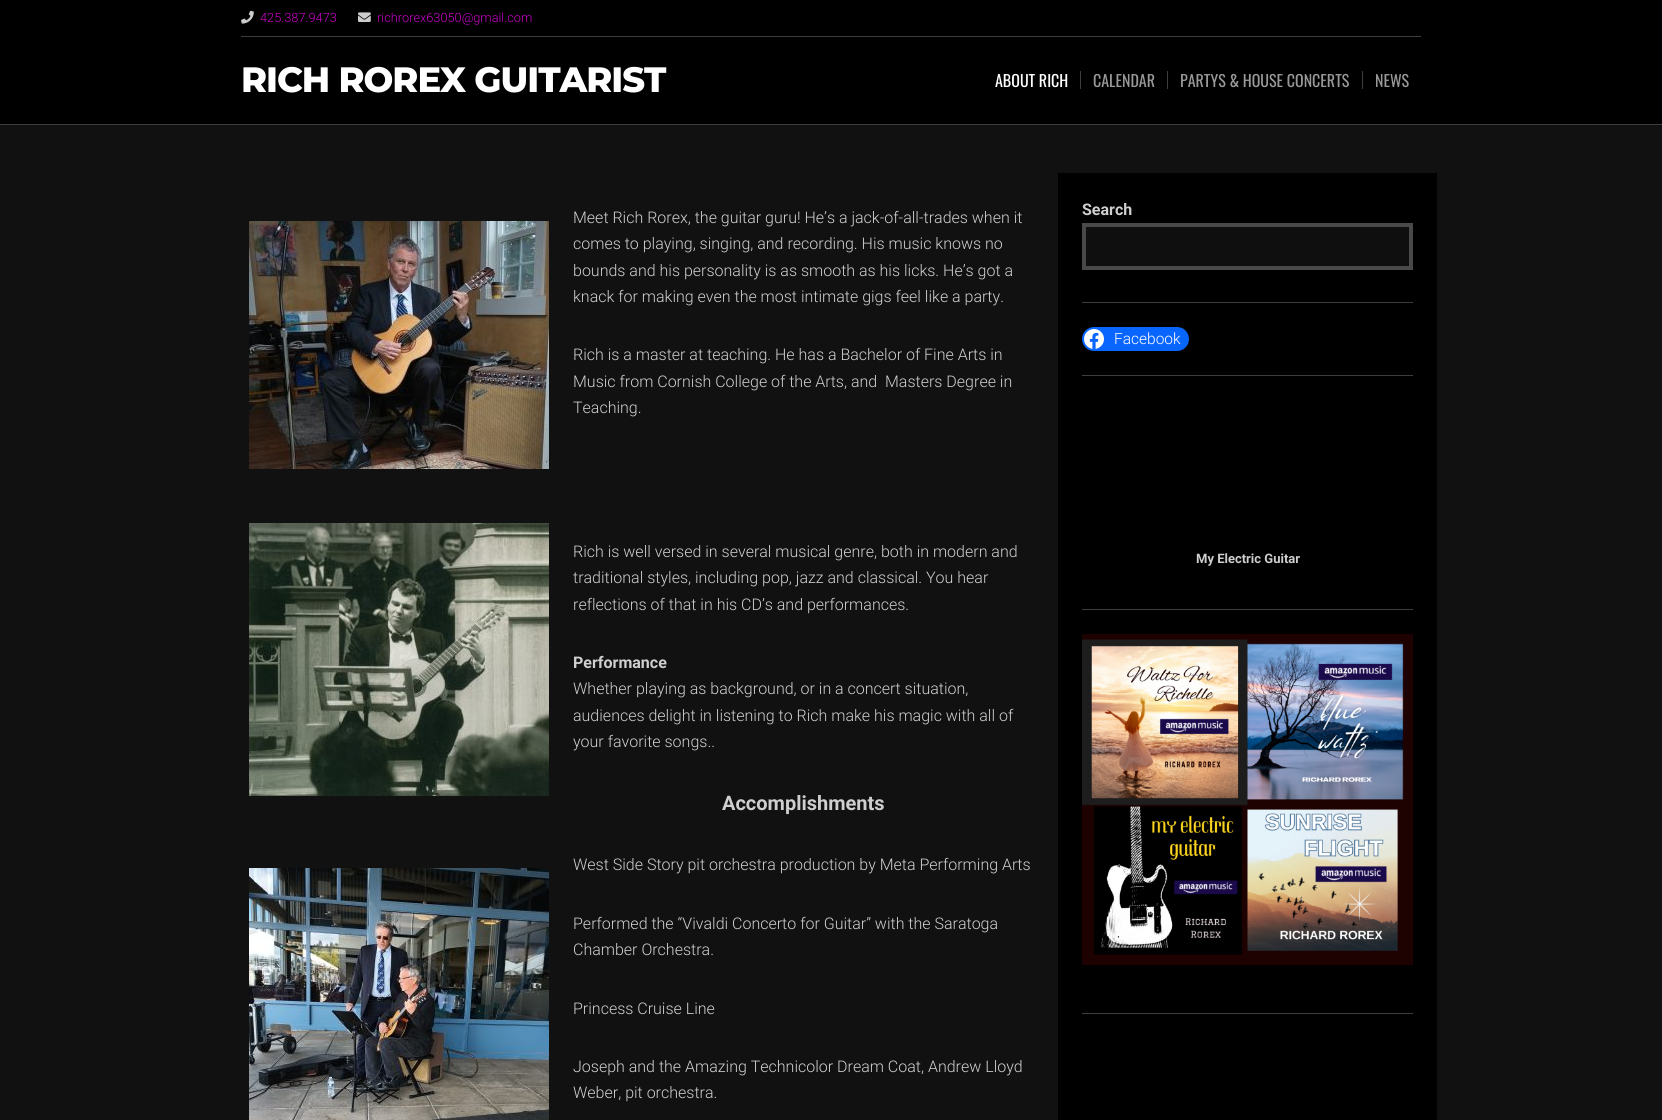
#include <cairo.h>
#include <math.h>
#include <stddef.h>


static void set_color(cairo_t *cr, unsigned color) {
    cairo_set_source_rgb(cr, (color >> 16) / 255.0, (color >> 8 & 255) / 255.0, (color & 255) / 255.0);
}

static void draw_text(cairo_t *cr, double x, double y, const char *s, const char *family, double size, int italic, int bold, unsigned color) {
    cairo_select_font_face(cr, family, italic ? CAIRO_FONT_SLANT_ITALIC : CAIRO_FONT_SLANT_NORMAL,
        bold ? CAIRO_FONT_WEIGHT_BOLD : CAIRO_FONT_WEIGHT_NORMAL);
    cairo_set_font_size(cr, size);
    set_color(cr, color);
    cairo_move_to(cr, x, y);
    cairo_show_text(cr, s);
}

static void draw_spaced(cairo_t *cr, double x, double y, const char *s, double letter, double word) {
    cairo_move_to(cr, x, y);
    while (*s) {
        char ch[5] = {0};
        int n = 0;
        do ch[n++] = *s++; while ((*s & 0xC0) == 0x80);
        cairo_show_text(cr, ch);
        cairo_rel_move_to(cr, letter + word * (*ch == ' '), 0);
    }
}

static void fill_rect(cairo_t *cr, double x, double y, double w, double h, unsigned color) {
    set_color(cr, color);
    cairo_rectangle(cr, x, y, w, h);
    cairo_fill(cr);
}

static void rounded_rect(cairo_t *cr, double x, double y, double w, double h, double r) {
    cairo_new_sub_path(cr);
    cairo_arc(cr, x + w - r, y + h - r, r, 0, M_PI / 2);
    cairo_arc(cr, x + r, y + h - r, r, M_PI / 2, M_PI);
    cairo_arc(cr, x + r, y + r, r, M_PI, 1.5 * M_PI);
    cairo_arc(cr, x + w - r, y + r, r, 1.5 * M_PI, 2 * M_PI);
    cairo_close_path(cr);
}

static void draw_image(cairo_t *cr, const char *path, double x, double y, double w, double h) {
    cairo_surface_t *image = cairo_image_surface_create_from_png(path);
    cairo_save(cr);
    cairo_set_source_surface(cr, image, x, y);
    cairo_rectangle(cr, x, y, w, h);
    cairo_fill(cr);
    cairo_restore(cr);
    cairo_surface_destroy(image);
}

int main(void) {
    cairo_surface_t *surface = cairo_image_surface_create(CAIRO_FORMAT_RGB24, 1662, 1120);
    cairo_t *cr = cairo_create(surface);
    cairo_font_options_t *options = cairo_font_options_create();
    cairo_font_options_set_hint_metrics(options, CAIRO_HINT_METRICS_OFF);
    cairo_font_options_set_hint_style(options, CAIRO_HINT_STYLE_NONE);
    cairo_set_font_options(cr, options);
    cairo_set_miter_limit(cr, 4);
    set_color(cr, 0x111111);
    cairo_paint(cr);
    fill_rect(cr, 0, 0, 1662, 124, 0x000000);
    fill_rect(cr, 0, 124, 1662, 1, 0x3D3D3D);
    fill_rect(cr, 241, 36, 1180, 1, 0x3D3D3D);
    draw_image(cr, "assets/img1.png", 241, 10, 13, 14);
    draw_text(cr, 260, 22, "425.387.9473", "Roboto Light", 12.75, 0, 0, 0xCC00CC);
    draw_image(cr, "assets/img2.png", 358, 12, 13, 10);
    draw_text(cr, 377, 22, "richrorex63050@gmail.com", "Roboto Light", 12.75, 0, 0, 0xCC00CC);
    cairo_select_font_face(cr, "Montserrat ExtraBold", CAIRO_FONT_SLANT_NORMAL, CAIRO_FONT_WEIGHT_NORMAL);
    cairo_set_font_size(cr, 35.25);
    set_color(cr, 0xFFFFFF);
    draw_spaced(cr, 241, 92, "RICH ROREX GUITARIST", -1, 0);
    draw_text(cr, 995, 87, "ABOUT RICH", "Oswald", 16, 0, 0, 0xFFFFFF);
    fill_rect(cr, 1080, 71, 1, 18, 0x3D3D3D);
    draw_text(cr, 1093, 87, "CALENDAR", "Oswald", 16, 0, 0, 0x999999);
    fill_rect(cr, 1167, 71, 1, 18, 0x3D3D3D);
    draw_text(cr, 1180, 87, "PARTYS & HOUSE CONCERTS", "Oswald", 16, 0, 0, 0x999999);
    fill_rect(cr, 1362, 71, 1, 18, 0x3D3D3D);
    draw_text(cr, 1375, 87, "NEWS", "Oswald", 16, 0, 0, 0x999999);
    draw_image(cr, "assets/img3.png", 249, 221, 300, 248);
    draw_text(cr, 573, 223, "Meet Rich Rorex, the guitar guru! He’s a jack-of-all-trades when it", "Roboto Light", 16, 0, 0, 0xCFCFCF);
    draw_text(cr, 573, 249, "comes to playing, singing, and recording. His music knows no", "Roboto Light", 16, 0, 0, 0xCFCFCF);
    draw_text(cr, 573, 276, "bounds and his personality is as smooth as his licks. He’s got a", "Roboto Light", 16, 0, 0, 0xCFCFCF);
    draw_text(cr, 573, 302, "knack for making even the most intimate gigs feel like a party.", "Roboto Light", 16, 0, 0, 0xCFCFCF);
    draw_text(cr, 573, 360, "Rich is a master at teaching. He has a Bachelor of Fine Arts in", "Roboto Light", 16, 0, 0, 0xCFCFCF);
    draw_text(cr, 573, 387, "Music from Cornish College of the Arts, and  Masters Degree in", "Roboto Light", 16, 0, 0, 0xCFCFCF);
    draw_text(cr, 573, 413, "Teaching.", "Roboto Light", 16, 0, 0, 0xCFCFCF);
    draw_image(cr, "assets/img4.png", 249, 523, 300, 273);
    draw_text(cr, 573, 557, "Rich is well versed in several musical genre, both in modern and", "Roboto Light", 16, 0, 0, 0xCFCFCF);
    draw_text(cr, 573, 583, "traditional styles, including pop, jazz and classical. You hear", "Roboto Light", 16, 0, 0, 0xCFCFCF);
    draw_text(cr, 573, 610, "reflections of that in his CD’s and performances.", "Roboto Light", 16, 0, 0, 0xCFCFCF);
    draw_text(cr, 573, 668, "Performance", "Roboto", 16, 0, 1, 0xCFCFCF);
    draw_text(cr, 573, 694, "Whether playing as background, or in a concert situation,", "Roboto Light", 16, 0, 0, 0xCFCFCF);
    draw_text(cr, 573, 721, "audiences delight in listening to Rich make his magic with all of", "Roboto Light", 16, 0, 0, 0xCFCFCF);
    draw_text(cr, 573, 747, "your favorite songs..", "Roboto Light", 16, 0, 0, 0xCFCFCF);
    draw_text(cr, 722, 810, "Accomplishments", "Roboto", 20, 0, 1, 0xCFCFCF);
    draw_text(cr, 573, 870, "West Side Story pit orchestra production by Meta Performing Arts", "Roboto Light", 16, 0, 0, 0xCFCFCF);
    draw_image(cr, "assets/img5.png", 249, 868, 300, 252);
    draw_text(cr, 573, 929, "Performed the “Vivaldi Concerto for Guitar” with the Saratoga", "Roboto Light", 16, 0, 0, 0xCFCFCF);
    draw_text(cr, 573, 955, "Chamber Orchestra.", "Roboto Light", 16, 0, 0, 0xCFCFCF);
    draw_text(cr, 573, 1014, "Princess Cruise Line", "Roboto Light", 16, 0, 0, 0xCFCFCF);
    draw_text(cr, 573, 1072, "Joseph and the Amazing Technicolor Dream Coat, Andrew Lloyd", "Roboto Light", 16, 0, 0, 0xCFCFCF);
    draw_text(cr, 573, 1098, "Weber, pit orchestra.", "Roboto Light", 16, 0, 0, 0xCFCFCF);
    fill_rect(cr, 1058, 173, 379, 947, 0x000000);
    fill_rect(cr, 1082, 302, 331, 1, 0x3D3D3D);
    draw_text(cr, 1082, 215, "Search", "Roboto", 16, 0, 1, 0xCFCFCF);
    set_color(cr, 0x0F0F0F);
    cairo_rectangle(cr, 1084, 225, 327, 43);
    cairo_fill_preserve(cr);
    set_color(cr, 0x494949);
    cairo_set_line_width(cr, 4);
    cairo_stroke(cr);
    fill_rect(cr, 1082, 375, 331, 1, 0x3D3D3D);
    set_color(cr, 0x0866FF);
    rounded_rect(cr, 1082, 327, 107, 24, 12);
    cairo_fill(cr);
    draw_image(cr, "assets/img6.png", 1084, 329, 20, 20);
    draw_text(cr, 1114, 344, "Facebook", "Roboto Light", 15.5, 0, 0, 0xFFFFFF);
    fill_rect(cr, 1082, 609, 331, 1, 0x3D3D3D);
    draw_text(cr, 1196, 563, "My Electric Guitar", "Roboto", 13, 0, 1, 0xCFCFCF);
    fill_rect(cr, 1082, 1013, 331, 1, 0x3D3D3D);
    draw_image(cr, "assets/img7.png", 1082, 634, 331, 331);
    cairo_surface_write_to_png(surface, "output.png");
    cairo_font_options_destroy(options);
    cairo_destroy(cr);
    cairo_surface_destroy(surface);
    return 0;
}
